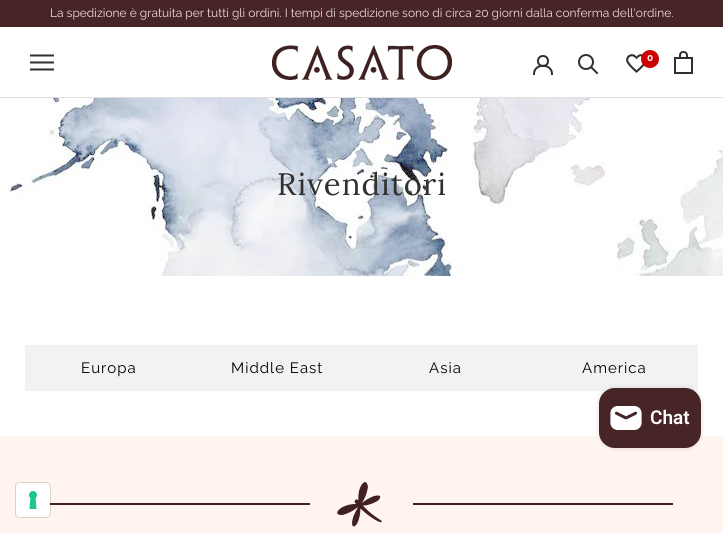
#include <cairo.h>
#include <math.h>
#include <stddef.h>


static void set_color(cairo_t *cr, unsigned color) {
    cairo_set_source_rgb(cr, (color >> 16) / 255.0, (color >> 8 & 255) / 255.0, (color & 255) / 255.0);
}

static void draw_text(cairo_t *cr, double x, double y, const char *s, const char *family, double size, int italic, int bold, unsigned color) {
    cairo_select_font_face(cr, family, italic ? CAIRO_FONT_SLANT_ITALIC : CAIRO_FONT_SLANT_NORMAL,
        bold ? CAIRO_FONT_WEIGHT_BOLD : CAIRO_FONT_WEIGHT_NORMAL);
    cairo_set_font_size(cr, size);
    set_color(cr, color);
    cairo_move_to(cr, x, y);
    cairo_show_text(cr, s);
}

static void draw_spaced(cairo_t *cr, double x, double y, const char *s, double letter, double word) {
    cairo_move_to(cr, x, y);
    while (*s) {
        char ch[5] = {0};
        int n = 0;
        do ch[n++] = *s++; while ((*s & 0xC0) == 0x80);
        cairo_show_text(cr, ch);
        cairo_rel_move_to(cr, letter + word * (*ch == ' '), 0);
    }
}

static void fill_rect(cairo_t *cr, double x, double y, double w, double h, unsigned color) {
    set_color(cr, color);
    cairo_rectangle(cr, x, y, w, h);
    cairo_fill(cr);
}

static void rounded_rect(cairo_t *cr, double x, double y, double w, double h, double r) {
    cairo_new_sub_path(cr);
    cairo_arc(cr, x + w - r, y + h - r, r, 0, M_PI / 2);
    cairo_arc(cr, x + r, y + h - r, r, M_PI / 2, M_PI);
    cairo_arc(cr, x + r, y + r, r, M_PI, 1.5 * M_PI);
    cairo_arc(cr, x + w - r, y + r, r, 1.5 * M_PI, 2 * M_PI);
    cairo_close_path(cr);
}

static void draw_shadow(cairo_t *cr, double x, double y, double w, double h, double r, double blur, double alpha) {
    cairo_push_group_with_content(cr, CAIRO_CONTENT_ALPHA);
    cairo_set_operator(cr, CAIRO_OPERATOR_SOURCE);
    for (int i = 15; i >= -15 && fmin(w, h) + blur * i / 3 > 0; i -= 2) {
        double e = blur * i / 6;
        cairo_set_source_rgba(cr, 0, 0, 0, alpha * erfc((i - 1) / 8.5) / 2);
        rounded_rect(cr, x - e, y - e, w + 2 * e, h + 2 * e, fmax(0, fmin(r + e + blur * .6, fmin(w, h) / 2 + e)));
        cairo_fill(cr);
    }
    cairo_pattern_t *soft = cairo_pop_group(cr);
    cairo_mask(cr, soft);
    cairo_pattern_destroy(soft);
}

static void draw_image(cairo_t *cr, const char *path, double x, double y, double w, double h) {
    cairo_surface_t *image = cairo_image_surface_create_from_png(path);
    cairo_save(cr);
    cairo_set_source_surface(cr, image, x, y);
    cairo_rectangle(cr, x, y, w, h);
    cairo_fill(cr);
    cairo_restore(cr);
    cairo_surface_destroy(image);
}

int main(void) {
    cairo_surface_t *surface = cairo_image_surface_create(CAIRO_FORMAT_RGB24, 723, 533);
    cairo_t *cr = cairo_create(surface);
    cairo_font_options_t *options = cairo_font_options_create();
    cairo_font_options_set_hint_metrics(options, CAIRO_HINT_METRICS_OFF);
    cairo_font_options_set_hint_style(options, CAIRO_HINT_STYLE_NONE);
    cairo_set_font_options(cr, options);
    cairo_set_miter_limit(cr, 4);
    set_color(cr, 0xFFFFFF);
    cairo_paint(cr);
    fill_rect(cr, 0, 0, 723, 27, 0x472426);
    draw_text(cr, 50, 17, "La spedizione è gratuita per tutti gli ordini. I tempi di spedizione sono di circa 20 giorni dalla conferma dell'ordine.", "Raleway Thin", 12, 0, 0, 0xECDDD8);
    fill_rect(cr, 0, 97, 723, 1, 0xE0E0E0);
    draw_image(cr, "assets/img1.png", 30, 54, 24, 17);
    draw_image(cr, "assets/img2.png", 272, 45, 180, 35);
    cairo_new_path(cr);
    cairo_move_to(cr, 534, 74);
    cairo_curve_to(cr, 534, 63, 552, 63, 552, 74);
    set_color(cr, 0x303030);
    cairo_set_line_cap(cr, CAIRO_LINE_CAP_SQUARE);
    cairo_stroke(cr);
    cairo_arc(cr, 543, 61, 5, 0, 2 * M_PI);
    cairo_set_line_cap(cr, CAIRO_LINE_CAP_BUTT);
    cairo_stroke(cr);
    cairo_new_path(cr);
    cairo_move_to(cr, 597, 73);
    cairo_line_to(cr, 591.5, 67.5);
    cairo_set_line_cap(cr, CAIRO_LINE_CAP_SQUARE);
    cairo_stroke(cr);
    cairo_arc(cr, 586, 62, 7, 0, 2 * M_PI);
    cairo_set_line_cap(cr, CAIRO_LINE_CAP_BUTT);
    cairo_stroke(cr);
    draw_image(cr, "assets/img3.png", 626, 54, 19, 19);
    set_color(cr, 0xCC0000);
    cairo_arc(cr, 650, 59, 9, 0, 2 * M_PI);
    cairo_fill(cr);
    draw_text(cr, 647, 61, "0", "Raleway", 10, 0, 1, 0xFFFFFF);
    draw_image(cr, "assets/img4.png", 674, 51, 19, 23);
    draw_image(cr, "assets/img5.png", 8, 98, 715, 178);
    cairo_select_font_face(cr, "Lora", CAIRO_FONT_SLANT_NORMAL, CAIRO_FONT_WEIGHT_NORMAL);
    cairo_set_font_size(cr, 31);
    set_color(cr, 0x303030);
    draw_spaced(cr, 277, 195, "Rivenditori", 1, 0);
    fill_rect(cr, 25, 345, 673, 46, 0xF0F2F3);
    cairo_select_font_face(cr, "Raleway Thin", CAIRO_FONT_SLANT_NORMAL, CAIRO_FONT_WEIGHT_NORMAL);
    cairo_set_font_size(cr, 15);
    set_color(cr, 0x000000);
    draw_spaced(cr, 81, 373, "Europa", 1, 0);
    draw_spaced(cr, 231, 373, "Middle East", 1, 0);
    draw_spaced(cr, 429, 373, "Asia", 1, 0);
    draw_spaced(cr, 582, 373, "America", 1, 0);
    fill_rect(cr, 0, 436, 723, 97, 0xFFF5EE);
    fill_rect(cr, 50, 503, 260, 2, 0x402023);
    draw_image(cr, "assets/img6.png", 337, 482, 45, 45);
    fill_rect(cr, 413, 503, 260, 2, 0x402023);
    set_color(cr, 0x000000);
    draw_shadow(cr, 599, 388, 102, 60, 16, 2.5, 0.15);
    set_color(cr, 0x472426);
    rounded_rect(cr, 599, 388, 102, 60, 16);
    cairo_fill(cr);
    draw_image(cr, "assets/img7.png", 610, 406, 32, 24);
    draw_text(cr, 650, 424, "Chat", "Roboto SemiBold", 19, 0, 0, 0xFFFFFF);
    rounded_rect(cr, 15.5, 482.5, 35, 35, 4.5);
    cairo_set_source_rgba(cr, 0, 0, 0, 0.15);
    cairo_set_line_width(cr, 1);
    cairo_stroke(cr);
    set_color(cr, 0xFFFFFF);
    rounded_rect(cr, 16, 483, 34, 34, 4);
    cairo_fill(cr);
    draw_image(cr, "assets/img8.png", 29, 491, 8, 18);
    cairo_surface_write_to_png(surface, "output.png");
    cairo_font_options_destroy(options);
    cairo_destroy(cr);
    cairo_surface_destroy(surface);
    return 0;
}
